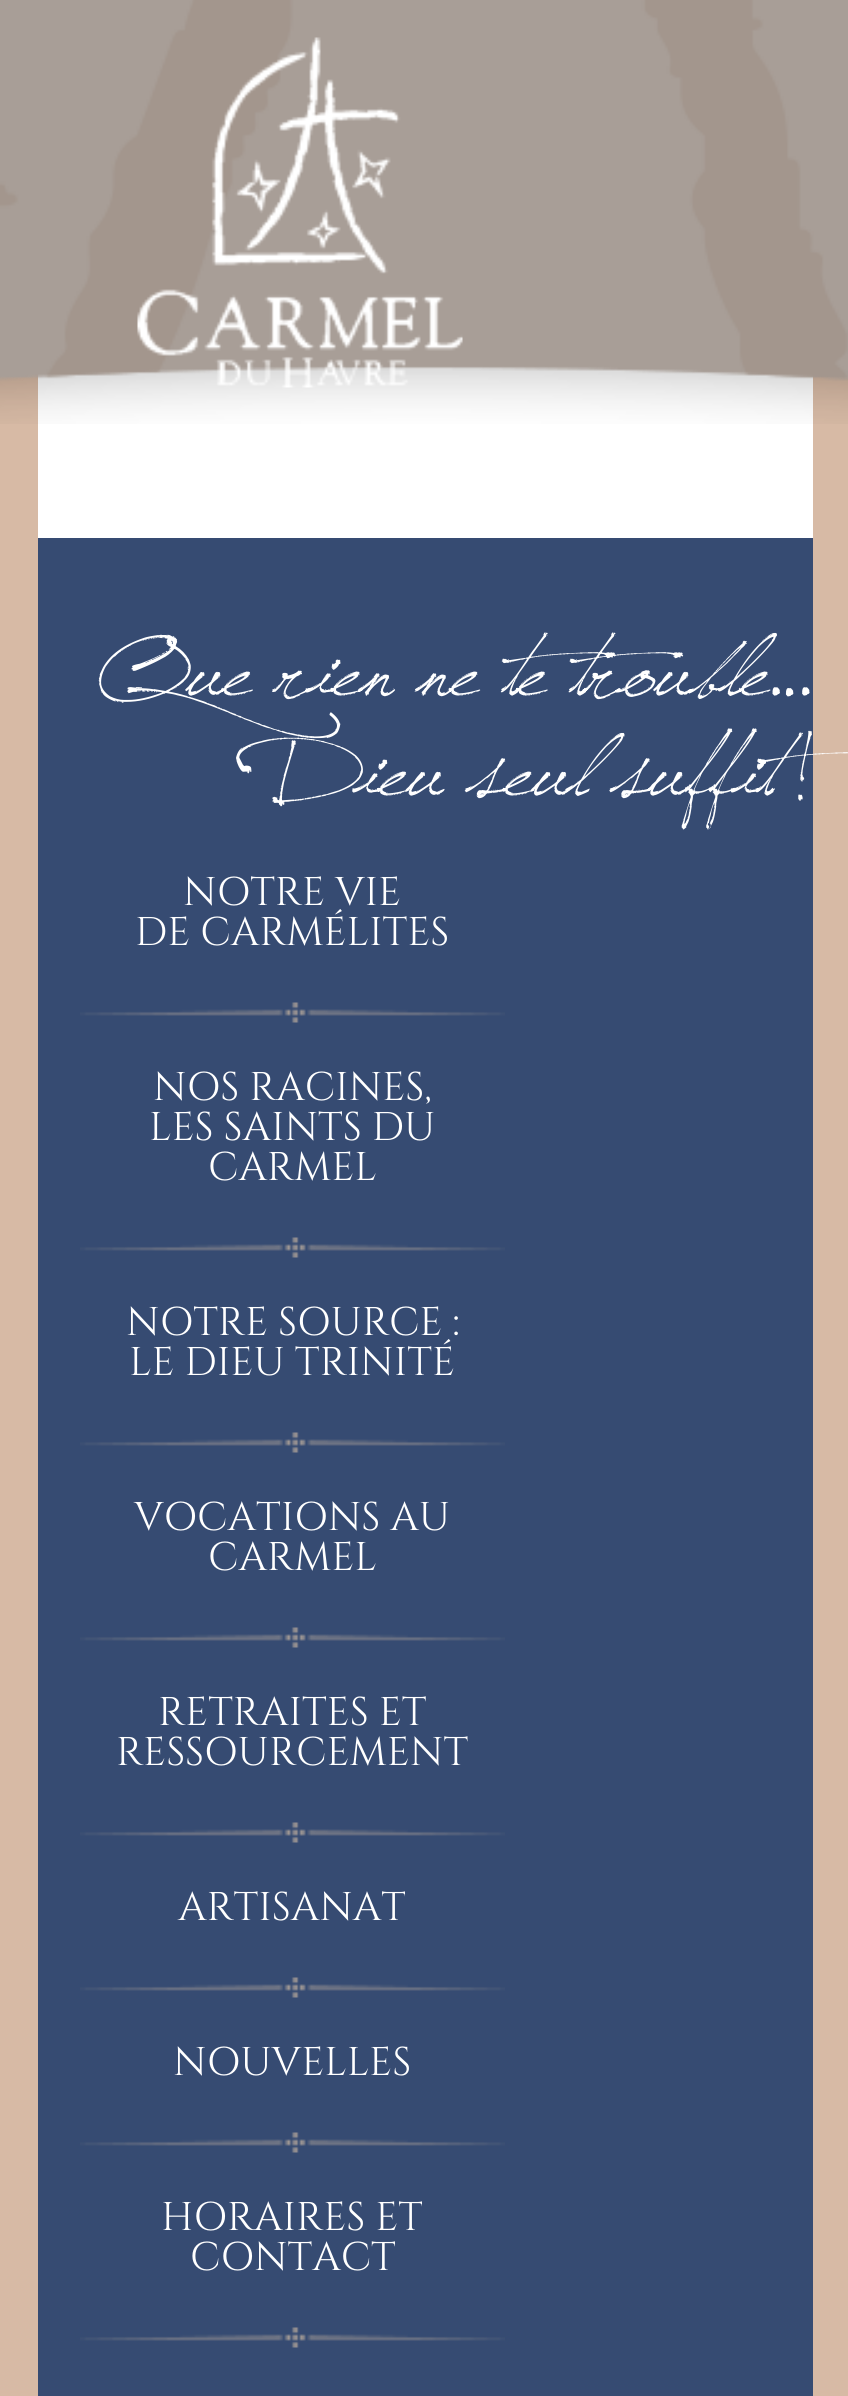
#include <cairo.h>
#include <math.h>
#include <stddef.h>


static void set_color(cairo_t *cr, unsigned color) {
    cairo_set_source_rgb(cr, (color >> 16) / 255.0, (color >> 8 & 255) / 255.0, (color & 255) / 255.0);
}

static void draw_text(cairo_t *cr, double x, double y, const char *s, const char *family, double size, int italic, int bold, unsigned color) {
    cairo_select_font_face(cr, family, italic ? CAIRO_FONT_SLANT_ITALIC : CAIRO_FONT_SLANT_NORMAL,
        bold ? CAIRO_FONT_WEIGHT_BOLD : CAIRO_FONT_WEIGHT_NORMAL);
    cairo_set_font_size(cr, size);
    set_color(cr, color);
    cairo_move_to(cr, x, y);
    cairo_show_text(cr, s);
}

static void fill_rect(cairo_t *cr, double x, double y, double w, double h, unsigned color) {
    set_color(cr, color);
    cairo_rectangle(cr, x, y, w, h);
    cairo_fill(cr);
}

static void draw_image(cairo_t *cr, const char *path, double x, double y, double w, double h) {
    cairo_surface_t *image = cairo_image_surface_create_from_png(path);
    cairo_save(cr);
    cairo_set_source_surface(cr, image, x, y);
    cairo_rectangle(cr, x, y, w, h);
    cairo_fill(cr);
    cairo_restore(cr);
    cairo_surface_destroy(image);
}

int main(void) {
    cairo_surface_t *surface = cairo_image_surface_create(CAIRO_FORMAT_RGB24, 848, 2396);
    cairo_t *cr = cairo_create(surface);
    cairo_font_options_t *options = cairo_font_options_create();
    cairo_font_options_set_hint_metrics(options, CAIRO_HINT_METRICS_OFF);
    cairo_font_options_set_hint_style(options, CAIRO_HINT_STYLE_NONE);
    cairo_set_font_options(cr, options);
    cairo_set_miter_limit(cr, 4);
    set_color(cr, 0xD7BAA5);
    cairo_paint(cr);
    fill_rect(cr, 38, 366, 775, 172, 0xFFFFFF);
    draw_image(cr, "assets/img1.png", 0, 0, 848, 424);
    draw_image(cr, "assets/img2.png", 137, 37, 326, 351);
    fill_rect(cr, 38, 538, 775, 1858, 0x364B72);
    draw_text(cr, 99, 695, "Que rien ne te trouble…", "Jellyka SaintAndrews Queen", 97.5, 0, 0, 0xFFFFFF);
    draw_text(cr, 272, 795, "Dieu seul suffit !", "Jellyka SaintAndrews Queen", 97.5, 0, 0, 0xFFFFFF);
    draw_text(cr, 706, 848, "’", "Cinzel", 32, 0, 0, 0x364B72);
    draw_text(cr, 183, 905, "NOTRE VIE", "Cinzel", 40, 0, 0, 0xFFFFFF);
    draw_text(cr, 135, 945, "DE CARMÉLITES", "Cinzel", 40, 0, 0, 0xFFFFFF);
    draw_image(cr, "assets/img3.png", 80, 1002, 425, 21);
    draw_text(cr, 153, 1100, "NOS RACINES,", "Cinzel", 40, 0, 0, 0xFFFFFF);
    draw_text(cr, 149, 1140, "LES SAINTS DU", "Cinzel", 40, 0, 0, 0xFFFFFF);
    draw_text(cr, 208, 1180, "CARMEL", "Cinzel", 40, 0, 0, 0xFFFFFF);
    draw_image(cr, "assets/img3.png", 80, 1237, 425, 21);
    draw_text(cr, 126, 1335, "NOTRE SOURCE :", "Cinzel", 40, 0, 0, 0xFFFFFF);
    draw_text(cr, 129, 1375, "LE DIEU TRINITÉ", "Cinzel", 40, 0, 0, 0xFFFFFF);
    draw_image(cr, "assets/img3.png", 80, 1432, 425, 21);
    draw_text(cr, 134, 1530, "VOCATIONS AU", "Cinzel", 40, 0, 0, 0xFFFFFF);
    draw_text(cr, 208, 1570, "CARMEL", "Cinzel", 40, 0, 0, 0xFFFFFF);
    draw_image(cr, "assets/img3.png", 80, 1627, 425, 21);
    draw_text(cr, 158, 1725, "RETRAITES ET", "Cinzel", 40, 0, 0, 0xFFFFFF);
    draw_text(cr, 116, 1765, "RESSOURCEMENT", "Cinzel", 40, 0, 0, 0xFFFFFF);
    draw_image(cr, "assets/img3.png", 80, 1822, 425, 21);
    draw_text(cr, 178, 1920, "ARTISANAT", "Cinzel", 40, 0, 0, 0xFFFFFF);
    draw_image(cr, "assets/img3.png", 80, 1977, 425, 21);
    draw_text(cr, 173, 2075, "NOUVELLES", "Cinzel", 40, 0, 0, 0xFFFFFF);
    draw_image(cr, "assets/img3.png", 80, 2132, 425, 21);
    draw_text(cr, 161, 2230, "HORAIRES ET", "Cinzel", 40, 0, 0, 0xFFFFFF);
    draw_text(cr, 190, 2270, "CONTACT", "Cinzel", 40, 0, 0, 0xFFFFFF);
    draw_image(cr, "assets/img3.png", 80, 2327, 425, 21);
    cairo_surface_write_to_png(surface, "output.png");
    cairo_font_options_destroy(options);
    cairo_destroy(cr);
    cairo_surface_destroy(surface);
    return 0;
}
